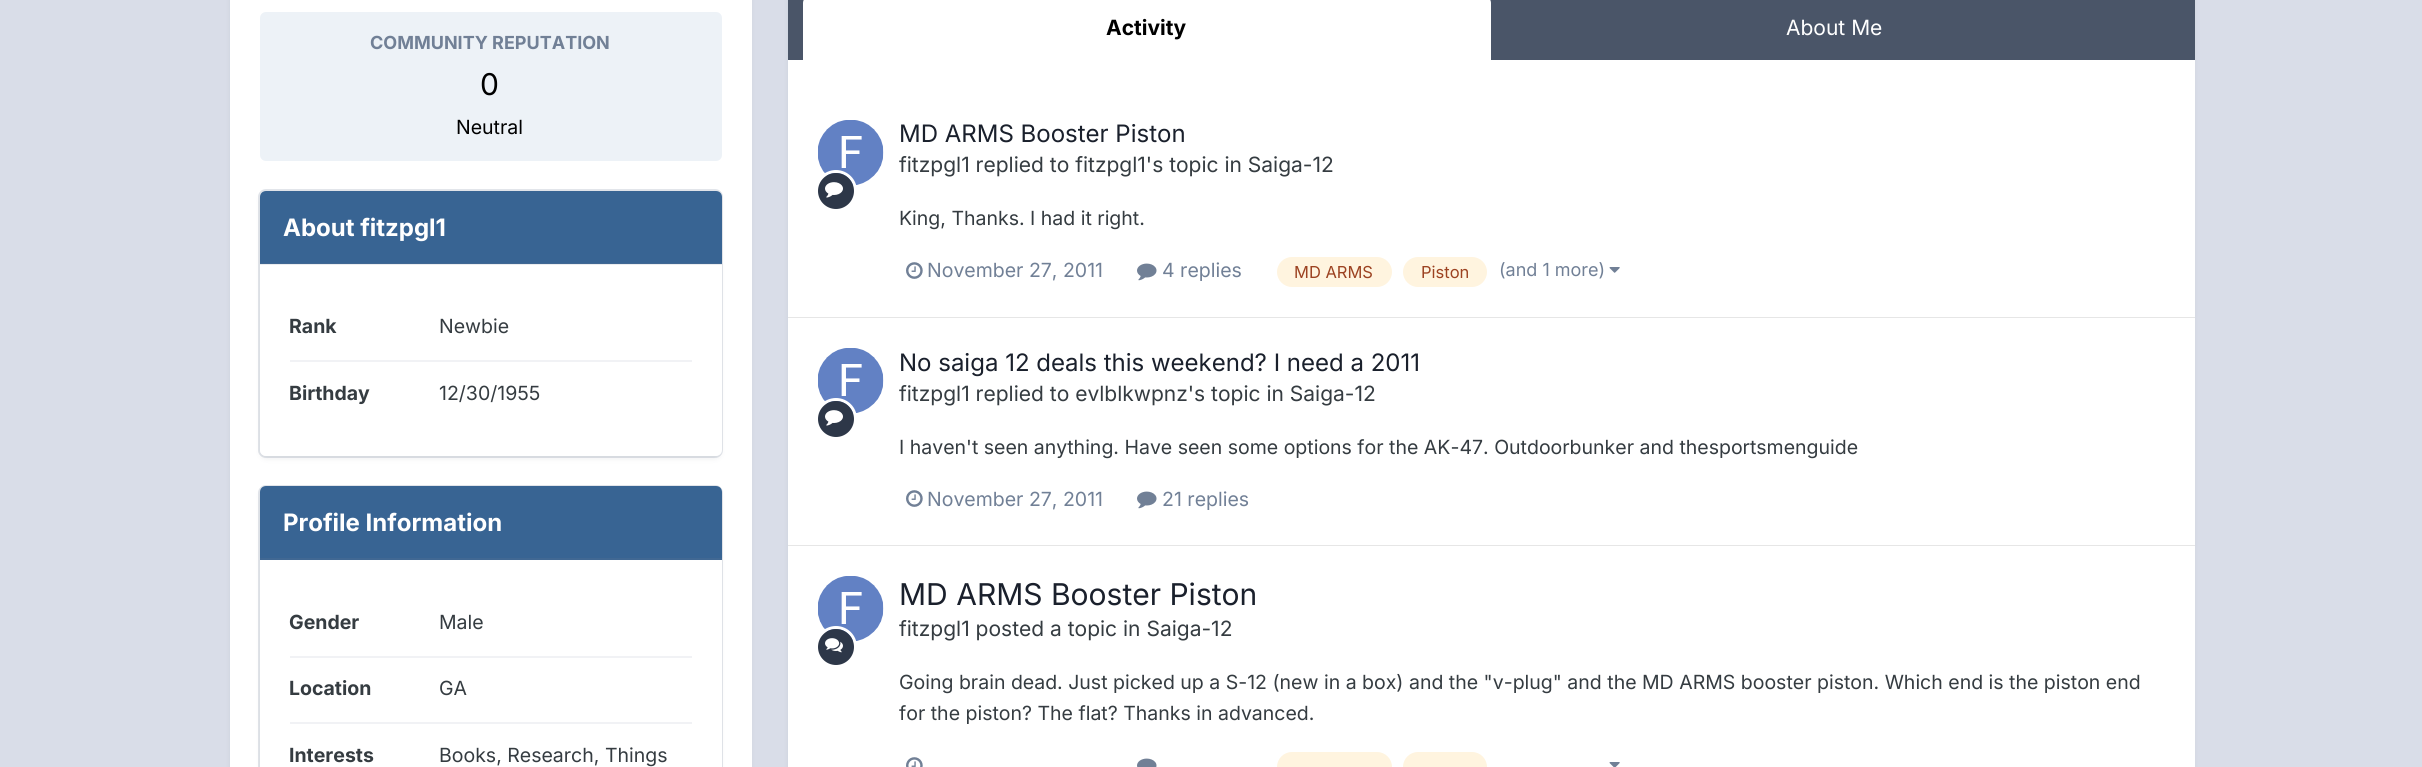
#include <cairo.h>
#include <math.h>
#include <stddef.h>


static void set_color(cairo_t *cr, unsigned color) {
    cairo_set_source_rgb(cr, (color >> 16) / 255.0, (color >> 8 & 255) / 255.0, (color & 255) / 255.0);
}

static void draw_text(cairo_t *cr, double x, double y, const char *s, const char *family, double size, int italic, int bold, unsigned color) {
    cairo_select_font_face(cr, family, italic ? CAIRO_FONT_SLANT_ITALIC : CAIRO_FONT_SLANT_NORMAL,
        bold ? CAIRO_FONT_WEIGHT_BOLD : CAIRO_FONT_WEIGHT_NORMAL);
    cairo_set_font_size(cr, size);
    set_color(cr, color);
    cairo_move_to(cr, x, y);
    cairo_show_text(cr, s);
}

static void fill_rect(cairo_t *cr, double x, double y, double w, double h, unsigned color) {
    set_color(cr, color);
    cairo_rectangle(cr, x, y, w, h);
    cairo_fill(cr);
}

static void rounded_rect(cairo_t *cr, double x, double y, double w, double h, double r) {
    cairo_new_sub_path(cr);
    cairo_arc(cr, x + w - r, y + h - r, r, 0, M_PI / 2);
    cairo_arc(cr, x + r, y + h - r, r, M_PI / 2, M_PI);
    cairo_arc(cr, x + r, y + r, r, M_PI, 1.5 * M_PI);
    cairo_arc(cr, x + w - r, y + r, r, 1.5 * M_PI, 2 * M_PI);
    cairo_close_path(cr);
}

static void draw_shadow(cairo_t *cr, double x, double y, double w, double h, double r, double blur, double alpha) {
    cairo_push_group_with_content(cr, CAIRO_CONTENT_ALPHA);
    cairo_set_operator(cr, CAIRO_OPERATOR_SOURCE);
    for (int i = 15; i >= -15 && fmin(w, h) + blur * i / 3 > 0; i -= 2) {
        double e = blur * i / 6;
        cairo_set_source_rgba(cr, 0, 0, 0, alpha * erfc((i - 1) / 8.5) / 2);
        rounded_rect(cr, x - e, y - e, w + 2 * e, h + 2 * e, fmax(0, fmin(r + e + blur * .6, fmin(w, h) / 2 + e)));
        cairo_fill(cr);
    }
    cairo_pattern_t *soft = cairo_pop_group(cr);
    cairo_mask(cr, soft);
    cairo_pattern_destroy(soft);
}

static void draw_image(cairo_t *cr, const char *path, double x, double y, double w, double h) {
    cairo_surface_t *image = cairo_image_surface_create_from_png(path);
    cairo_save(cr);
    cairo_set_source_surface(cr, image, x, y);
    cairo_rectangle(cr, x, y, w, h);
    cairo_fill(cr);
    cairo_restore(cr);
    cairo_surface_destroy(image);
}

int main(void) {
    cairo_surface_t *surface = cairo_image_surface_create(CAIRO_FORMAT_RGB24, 2422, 767);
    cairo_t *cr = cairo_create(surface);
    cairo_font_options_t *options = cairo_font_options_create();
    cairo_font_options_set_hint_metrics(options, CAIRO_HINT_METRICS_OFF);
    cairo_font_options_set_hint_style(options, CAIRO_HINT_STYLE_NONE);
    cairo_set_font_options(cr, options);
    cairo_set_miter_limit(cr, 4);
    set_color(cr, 0xD9DDE8);
    cairo_paint(cr);
    set_color(cr, 0x2D3748);
    draw_shadow(cr, 231, -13, 519, 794, 5, 3, 0.1);
    fill_rect(cr, 230, 0, 522, 767, 0xFFFFFF);
    set_color(cr, 0xEDF2F7);
    rounded_rect(cr, 260, 12, 462, 149, 6);
    cairo_fill(cr);
    draw_text(cr, 370, 49, "COMMUNITY REPUTATION", "Inter", 18, 0, 1, 0x718096);
    draw_text(cr, 480, 95, "0", "Inter", 30, 0, 0, 0x000000);
    draw_text(cr, 456, 134, "Neutral", "Inter", 19.5, 0, 0, 0x000000);
    set_color(cr, 0x2D3748);
    draw_shadow(cr, 261, 195, 459, 263, 5, 3, 0.1);
    rounded_rect(cr, 259, 190, 463, 267, 7);
    cairo_set_source_rgba(cr, 0.443, 0.502, 0.588, 0.2);
    cairo_stroke(cr);
    set_color(cr, 0xFFFFFF);
    rounded_rect(cr, 260, 191, 462, 265, 6);
    cairo_fill(cr);
    set_color(cr, 0x386493);
    cairo_new_path(cr);
    cairo_move_to(cr, 266, 191);
    cairo_line_to(cr, 716, 191);
    cairo_curve_to(cr, 719.5, 191, 722, 193.5, 722, 197);
    cairo_line_to(cr, 722, 264);
    cairo_line_to(cr, 260, 264);
    cairo_line_to(cr, 260, 197);
    cairo_curve_to(cr, 260, 193.5, 262.5, 191, 266, 191);
    cairo_close_path(cr);
    cairo_fill(cr);
    cairo_set_source_rgba(cr, 0.443, 0.502, 0.588, 0.15);
    cairo_rectangle(cr, 260, 263, 462, 2);
    cairo_fill(cr);
    draw_text(cr, 283, 236, "About fitzpgl1", "Inter", 24, 0, 1, 0xFFFFFF);
    fill_rect(cr, 290, 360, 402, 2, 0xF1F2F5);
    draw_text(cr, 289, 333, "Rank", "Inter", 19.5, 0, 1, 0x353C41);
    draw_text(cr, 439, 333, "Newbie", "Inter", 19.5, 0, 0, 0x353C41);
    draw_text(cr, 289, 400, "Birthday", "Inter", 19.5, 0, 1, 0x353C41);
    draw_text(cr, 439, 400, "12/30/1955", "Inter", 19.5, 0, 0, 0x353C41);
    set_color(cr, 0x2D3748);
    draw_shadow(cr, 261, 491, 459, 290, 5, 3, 0.1);
    rounded_rect(cr, 259, 486, 463, 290, 7);
    cairo_set_source_rgba(cr, 0.443, 0.502, 0.588, 0.2);
    cairo_stroke(cr);
    set_color(cr, 0xFFFFFF);
    rounded_rect(cr, 260, 486, 462, 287, 6);
    cairo_fill(cr);
    set_color(cr, 0x386493);
    cairo_new_path(cr);
    cairo_move_to(cr, 266, 486);
    cairo_line_to(cr, 716, 486);
    cairo_curve_to(cr, 719.5, 486, 722, 488.5, 722, 492);
    cairo_line_to(cr, 722, 560);
    cairo_line_to(cr, 260, 560);
    cairo_line_to(cr, 260, 492);
    cairo_curve_to(cr, 260, 488.5, 262.5, 486, 266, 486);
    cairo_close_path(cr);
    cairo_fill(cr);
    fill_rect(cr, 260, 558, 462, 2, 0x416893);
    draw_text(cr, 283, 531, "Profile Information", "Inter", 24, 0, 1, 0xFFFFFF);
    fill_rect(cr, 290, 656, 402, 2, 0xF1F2F5);
    draw_text(cr, 289, 629, "Gender", "Inter", 19.5, 0, 1, 0x353C41);
    draw_text(cr, 439, 629, "Male", "Inter", 19.5, 0, 0, 0x353C41);
    fill_rect(cr, 290, 722, 402, 2, 0xF1F2F5);
    draw_text(cr, 289, 695, "Location", "Inter", 19.5, 0, 1, 0x353C41);
    draw_text(cr, 439, 695, "GA", "Inter", 19.5, 0, 0, 0x353C41);
    draw_text(cr, 289, 762, "Interests", "Inter", 19.5, 0, 1, 0x353C41);
    draw_text(cr, 439, 762, "Books, Research, Things", "Inter", 19.5, 0, 0, 0x353C41);
    set_color(cr, 0x2D3748);
    draw_shadow(cr, 789, -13, 1404, 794, 5, 3, 0.1);
    fill_rect(cr, 788, 60, 1407, 257, 0xFFFFFF);
    fill_rect(cr, 788, 0, 1407, 60, 0x4A5568);
    set_color(cr, 0xFFFFFF);
    cairo_new_path(cr);
    cairo_move_to(cr, 809, -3);
    cairo_line_to(cr, 1485, -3);
    cairo_curve_to(cr, 1488.5, -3, 1491, -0.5, 1491, 3);
    cairo_line_to(cr, 1491, 60);
    cairo_line_to(cr, 803, 60);
    cairo_line_to(cr, 803, 3);
    cairo_curve_to(cr, 803, -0.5, 805.5, -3, 809, -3);
    cairo_close_path(cr);
    cairo_fill(cr);
    draw_text(cr, 1106, 35, "Activity", "Inter", 21, 0, 1, 0x000000);
    draw_text(cr, 1786, 35, "About Me", "Inter", 21, 0, 0, 0xFFFFFF);
    fill_rect(cr, 788, 317, 1407, 1, 0xE6E6E6);
    draw_image(cr, "assets/img1.png", 818, 120, 66, 66);
    draw_text(cr, 899, 142, "MD ARMS Booster Piston", "Inter", 24, 0, 0, 0x1A202C);
    draw_text(cr, 899, 172, "fitzpgl1 replied to fitzpgl1's topic in Saiga-12", "Inter", 21, 0, 0, 0x353C41);
    cairo_new_path(cr);
    cairo_arc(cr, 836, 191, 19.5, 0, 2 * M_PI);
    set_color(cr, 0xFFFFFF);
    cairo_set_line_width(cr, 3);
    cairo_stroke(cr);
    set_color(cr, 0x2D3748);
    cairo_arc(cr, 836, 191, 18, 0, 2 * M_PI);
    cairo_fill(cr);
    draw_image(cr, "assets/img2.png", 825, 182, 18, 16);
    draw_text(cr, 899, 225, "King, Thanks. I had it right.", "Inter", 19.5, 0, 0, 0x353C41);
    draw_image(cr, "assets/img3.png", 906, 262, 17, 17);
    draw_text(cr, 927, 277, "November 27, 2011", "Inter", 19.5, 0, 0, 0x718096);
    draw_image(cr, "assets/img4.png", 1137, 263, 20, 18);
    draw_text(cr, 1162, 277, "4 replies", "Inter", 19.5, 0, 0, 0x718096);
    set_color(cr, 0xFFF4DF);
    rounded_rect(cr, 1277, 257, 115, 30, 15);
    cairo_fill(cr);
    draw_text(cr, 1294, 278, "MD ARMS", "Inter", 16.5, 0, 0, 0x9C4221);
    set_color(cr, 0xFFF4DF);
    rounded_rect(cr, 1403, 257, 84, 30, 15);
    cairo_fill(cr);
    draw_text(cr, 1421, 278, "Piston", "Inter", 16.5, 0, 0, 0x9C4221);
    draw_text(cr, 1499, 276, "(and 1 more)", "Inter", 18, 0, 0, 0x718096);
    draw_image(cr, "assets/img5.png", 1609, 267, 11, 6);
    fill_rect(cr, 788, 318, 1407, 227, 0xFFFFFF);
    fill_rect(cr, 788, 545, 1407, 1, 0xE6E6E6);
    draw_image(cr, "assets/img1.png", 818, 348, 66, 66);
    draw_text(cr, 899, 371, "No saiga 12 deals this weekend? I need a 2011", "Inter", 24, 0, 0, 0x1A202C);
    draw_text(cr, 899, 401, "fitzpgl1 replied to evlblkwpnz's topic in Saiga-12", "Inter", 21, 0, 0, 0x353C41);
    cairo_new_path(cr);
    cairo_arc(cr, 836, 419, 19.5, 0, 2 * M_PI);
    set_color(cr, 0xFFFFFF);
    cairo_stroke(cr);
    set_color(cr, 0x2D3748);
    cairo_arc(cr, 836, 419, 18, 0, 2 * M_PI);
    cairo_fill(cr);
    draw_image(cr, "assets/img2.png", 825, 410, 18, 16);
    draw_text(cr, 899, 454, "I haven't seen anything. Have seen some options for the AK-47. Outdoorbunker and thesportsmenguide", "Inter", 19.5, 0, 0, 0x353C41);
    draw_image(cr, "assets/img3.png", 906, 490, 17, 17);
    draw_text(cr, 927, 506, "November 27, 2011", "Inter", 19.5, 0, 0, 0x718096);
    draw_image(cr, "assets/img4.png", 1137, 491, 20, 18);
    draw_text(cr, 1162, 506, "21 replies", "Inter", 19.5, 0, 0, 0x718096);
    fill_rect(cr, 788, 546, 1407, 221, 0xFFFFFF);
    draw_image(cr, "assets/img1.png", 818, 576, 66, 66);
    draw_text(cr, 899, 605, "MD ARMS Booster Piston", "Inter", 30, 0, 0, 0x1A202C);
    draw_text(cr, 899, 636, "fitzpgl1 posted a topic in Saiga-12", "Inter", 21, 0, 0, 0x353C41);
    cairo_new_path(cr);
    cairo_arc(cr, 836, 647, 19.5, 0, 2 * M_PI);
    set_color(cr, 0xFFFFFF);
    cairo_stroke(cr);
    set_color(cr, 0x2D3748);
    cairo_arc(cr, 836, 647, 18, 0, 2 * M_PI);
    cairo_fill(cr);
    draw_image(cr, "assets/img6.png", 825, 638, 18, 15);
    draw_text(cr, 899, 689, "Going brain dead. Just picked up a S-12 (new in a box) and the \"v-plug\" and the MD ARMS booster piston. Which end is the piston end", "Inter", 19.5, 0, 0, 0x353C41);
    draw_text(cr, 899, 720, "for the piston? The flat? Thanks in advanced.", "Inter", 19.5, 0, 0, 0x353C41);
    draw_image(cr, "assets/img7.png", 906, 757, 17, 10);
    draw_image(cr, "assets/img8.png", 1137, 758, 20, 9);
    set_color(cr, 0xFFF4DF);
    rounded_rect(cr, 1277, 752, 115, 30, 15);
    cairo_fill(cr);
    rounded_rect(cr, 1403, 752, 84, 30, 15);
    cairo_fill(cr);
    draw_image(cr, "assets/img9.png", 1609, 762, 11, 5);
    cairo_surface_write_to_png(surface, "output.png");
    cairo_font_options_destroy(options);
    cairo_destroy(cr);
    cairo_surface_destroy(surface);
    return 0;
}
